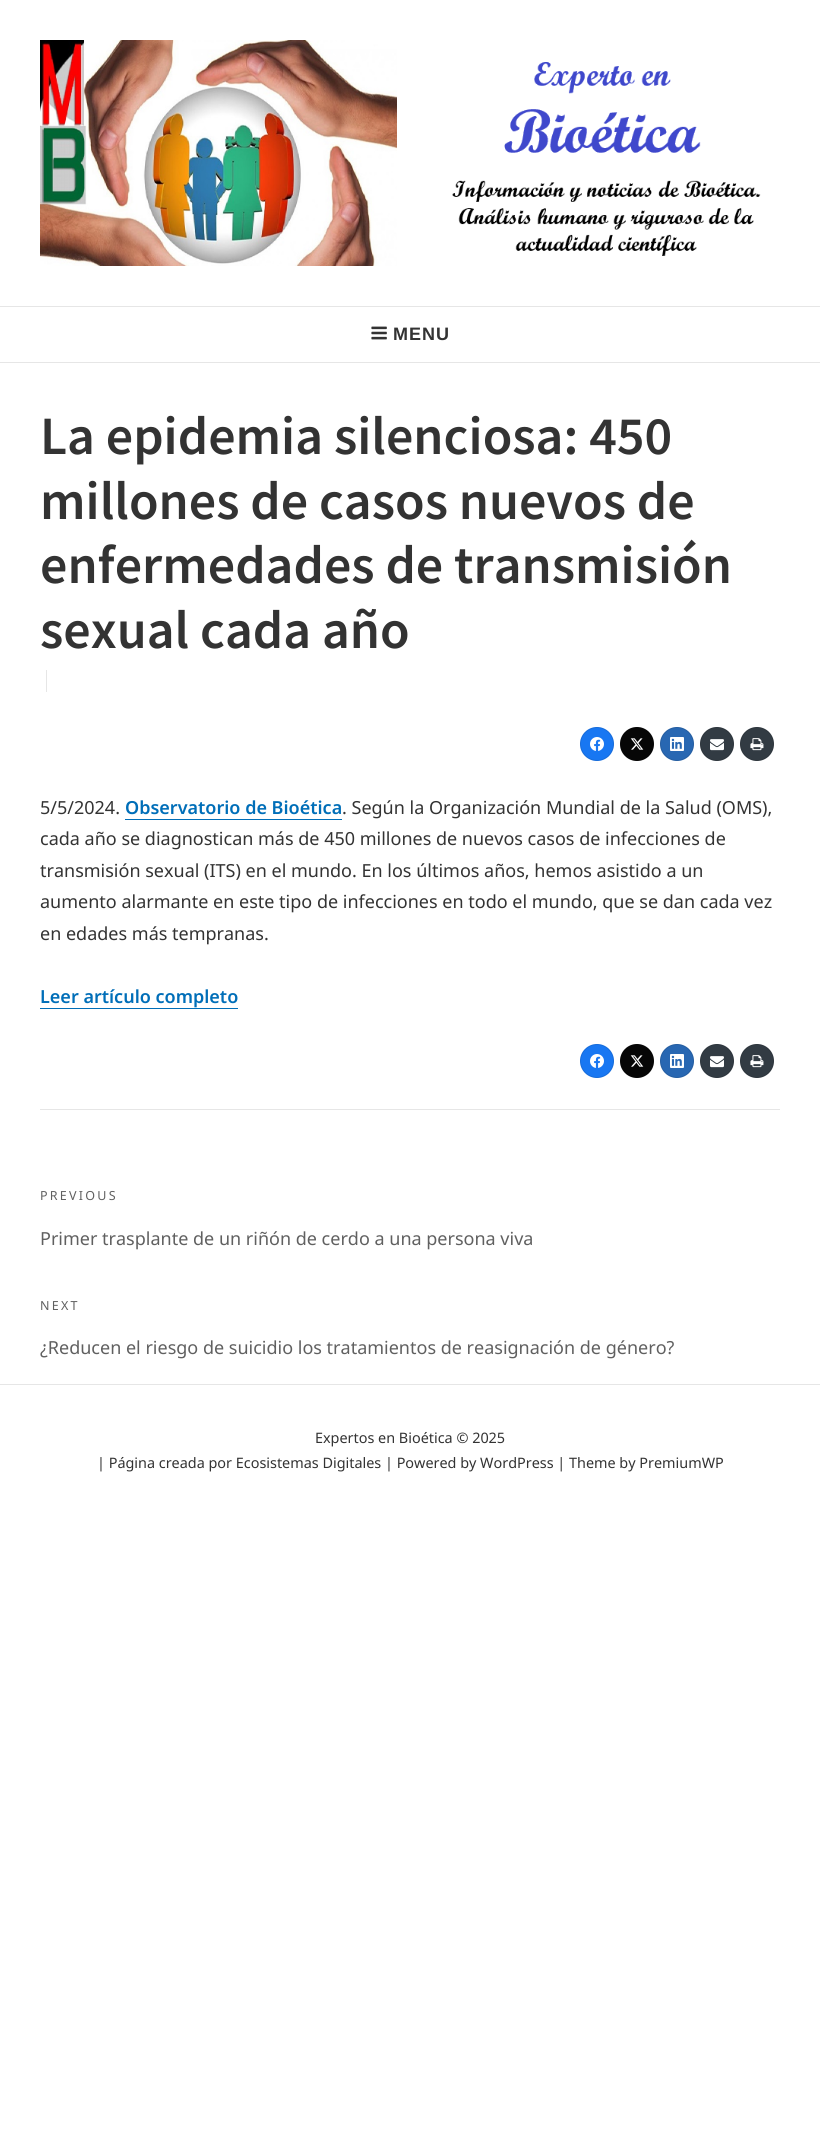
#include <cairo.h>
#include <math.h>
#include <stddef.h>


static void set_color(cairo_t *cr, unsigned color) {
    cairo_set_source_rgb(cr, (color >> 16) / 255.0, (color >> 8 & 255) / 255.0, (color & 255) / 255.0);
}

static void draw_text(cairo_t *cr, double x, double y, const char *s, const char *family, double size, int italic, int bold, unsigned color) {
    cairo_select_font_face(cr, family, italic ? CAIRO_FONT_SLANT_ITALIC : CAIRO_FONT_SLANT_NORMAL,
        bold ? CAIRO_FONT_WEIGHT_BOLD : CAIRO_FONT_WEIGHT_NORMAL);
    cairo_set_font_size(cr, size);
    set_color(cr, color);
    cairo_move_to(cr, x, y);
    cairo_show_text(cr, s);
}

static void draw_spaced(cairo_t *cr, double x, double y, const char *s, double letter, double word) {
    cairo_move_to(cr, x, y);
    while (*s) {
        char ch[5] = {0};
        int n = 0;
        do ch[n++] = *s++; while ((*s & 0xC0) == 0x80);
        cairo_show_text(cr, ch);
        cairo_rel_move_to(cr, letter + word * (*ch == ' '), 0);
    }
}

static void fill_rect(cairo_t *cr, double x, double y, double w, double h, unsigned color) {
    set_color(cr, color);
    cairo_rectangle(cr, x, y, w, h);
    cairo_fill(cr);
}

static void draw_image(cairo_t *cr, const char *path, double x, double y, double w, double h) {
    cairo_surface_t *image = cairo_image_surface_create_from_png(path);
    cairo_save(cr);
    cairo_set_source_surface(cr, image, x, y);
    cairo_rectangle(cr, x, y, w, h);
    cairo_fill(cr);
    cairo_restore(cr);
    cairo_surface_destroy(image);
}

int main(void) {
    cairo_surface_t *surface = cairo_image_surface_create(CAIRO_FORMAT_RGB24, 820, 2132);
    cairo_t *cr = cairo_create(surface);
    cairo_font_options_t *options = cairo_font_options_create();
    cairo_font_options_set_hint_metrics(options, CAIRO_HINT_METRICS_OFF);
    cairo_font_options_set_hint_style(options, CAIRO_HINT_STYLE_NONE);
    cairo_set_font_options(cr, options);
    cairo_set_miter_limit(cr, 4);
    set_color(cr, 0xFFFFFF);
    cairo_paint(cr);
    fill_rect(cr, 0, 362, 820, 1, 0xE6E6E6);
    draw_image(cr, "assets/img1.png", 40, 40, 721, 226);
    fill_rect(cr, 0, 306, 820, 1, 0xE6E6E6);
    draw_image(cr, "assets/img2.png", 371, 326, 16, 14);
    cairo_select_font_face(cr, "Liberation Sans", CAIRO_FONT_SLANT_NORMAL, CAIRO_FONT_WEIGHT_BOLD);
    cairo_set_font_size(cr, 18);
    set_color(cr, 0x333333);
    draw_spaced(cr, 393, 340, "MENU", 1, 0);
    draw_text(cr, 40, 454, "La epidemia silenciosa: 450", "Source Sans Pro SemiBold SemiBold", 54, 0, 0, 0x333333);
    draw_text(cr, 40, 519, "millones de casos nuevos de", "Source Sans Pro SemiBold SemiBold", 54, 0, 0, 0x333333);
    draw_text(cr, 40, 583, "enfermedades de transmisión", "Source Sans Pro SemiBold SemiBold", 54, 0, 0, 0x333333);
    draw_text(cr, 40, 648, "sexual cada año", "Source Sans Pro SemiBold SemiBold", 54, 0, 0, 0x333333);
    fill_rect(cr, 46, 670, 1, 22, 0xE6E6E6);
    set_color(cr, 0x1877F2);
    cairo_new_path(cr);
    cairo_arc(cr, 597, 744, 17, 0, 2 * M_PI);
    cairo_fill(cr);
    cairo_arc(cr, 597, 744, 16.5, 0, 2 * M_PI);
    cairo_set_source_rgba(cr, 0, 0, 0, 0.1);
    cairo_set_line_width(cr, 1);
    cairo_stroke(cr);
    draw_image(cr, "assets/img3.png", 590, 737, 14, 14);
    set_color(cr, 0x060606);
    cairo_arc(cr, 637, 744, 17, 0, 2 * M_PI);
    cairo_fill(cr);
    cairo_arc(cr, 637, 744, 16.5, 0, 2 * M_PI);
    cairo_set_source_rgba(cr, 0, 0, 0, 0.1);
    cairo_stroke(cr);
    draw_image(cr, "assets/img4.png", 630, 738, 14, 12);
    set_color(cr, 0x2867B2);
    cairo_arc(cr, 677, 744, 17, 0, 2 * M_PI);
    cairo_fill(cr);
    cairo_arc(cr, 677, 744, 16.5, 0, 2 * M_PI);
    cairo_set_source_rgba(cr, 0, 0, 0, 0.1);
    cairo_stroke(cr);
    draw_image(cr, "assets/img5.png", 670, 737, 14, 14);
    set_color(cr, 0x323B43);
    cairo_arc(cr, 717, 744, 17, 0, 2 * M_PI);
    cairo_fill(cr);
    cairo_arc(cr, 717, 744, 16.5, 0, 2 * M_PI);
    cairo_set_source_rgba(cr, 0, 0, 0, 0.1);
    cairo_stroke(cr);
    draw_image(cr, "assets/img6.png", 710, 739, 14, 12);
    set_color(cr, 0x323B43);
    cairo_arc(cr, 757, 744, 17, 0, 2 * M_PI);
    cairo_fill(cr);
    cairo_arc(cr, 757, 744, 16.5, 0, 2 * M_PI);
    cairo_set_source_rgba(cr, 0, 0, 0, 0.1);
    cairo_stroke(cr);
    draw_image(cr, "assets/img7.png", 750, 738, 14, 13);
    draw_text(cr, 40, 814, "5/5/2024.", "Noto Sans", 18, 0, 0, 0x333333);
    draw_text(cr, 125, 814, "Observatorio de Bioética", "Noto Sans SemiBold", 18, 0, 0, 0x006EB8);
    fill_rect(cr, 125, 819, 217, 1, 0x006EB8);
    draw_text(cr, 342, 814, ". Según la Organización Mundial de la Salud (OMS),", "Noto Sans", 18, 0, 0, 0x333333);
    draw_text(cr, 40, 845, "cada año se diagnostican más de 450 millones de nuevos casos de infecciones de", "Noto Sans", 18, 0, 0, 0x333333);
    draw_text(cr, 40, 877, "transmisión sexual (ITS) en el mundo. En los últimos años, hemos asistido a un", "Noto Sans", 18, 0, 0, 0x333333);
    draw_text(cr, 40, 908, "aumento alarmante en este tipo de infecciones en todo el mundo, que se dan cada vez", "Noto Sans", 18, 0, 0, 0x333333);
    draw_text(cr, 40, 940, "en edades más tempranas.", "Noto Sans", 18, 0, 0, 0x333333);
    draw_text(cr, 40, 1003, "Leer artículo completo", "Noto Sans SemiBold", 18, 0, 0, 0x006EB8);
    fill_rect(cr, 40, 1008, 198, 1, 0x006EB8);
    set_color(cr, 0x1877F2);
    cairo_new_path(cr);
    cairo_arc(cr, 597, 1061, 17, 0, 2 * M_PI);
    cairo_fill(cr);
    cairo_arc(cr, 597, 1061, 16.5, 0, 2 * M_PI);
    cairo_set_source_rgba(cr, 0, 0, 0, 0.1);
    cairo_stroke(cr);
    draw_image(cr, "assets/img3.png", 590, 1054, 14, 14);
    set_color(cr, 0x060606);
    cairo_arc(cr, 637, 1061, 17, 0, 2 * M_PI);
    cairo_fill(cr);
    cairo_arc(cr, 637, 1061, 16.5, 0, 2 * M_PI);
    cairo_set_source_rgba(cr, 0, 0, 0, 0.1);
    cairo_stroke(cr);
    draw_image(cr, "assets/img4.png", 630, 1055, 14, 12);
    set_color(cr, 0x2867B2);
    cairo_arc(cr, 677, 1061, 17, 0, 2 * M_PI);
    cairo_fill(cr);
    cairo_arc(cr, 677, 1061, 16.5, 0, 2 * M_PI);
    cairo_set_source_rgba(cr, 0, 0, 0, 0.1);
    cairo_stroke(cr);
    draw_image(cr, "assets/img5.png", 670, 1054, 14, 14);
    set_color(cr, 0x323B43);
    cairo_arc(cr, 717, 1061, 17, 0, 2 * M_PI);
    cairo_fill(cr);
    cairo_arc(cr, 717, 1061, 16.5, 0, 2 * M_PI);
    cairo_set_source_rgba(cr, 0, 0, 0, 0.1);
    cairo_stroke(cr);
    draw_image(cr, "assets/img6.png", 710, 1056, 14, 12);
    set_color(cr, 0x323B43);
    cairo_arc(cr, 757, 1061, 17, 0, 2 * M_PI);
    cairo_fill(cr);
    cairo_arc(cr, 757, 1061, 16.5, 0, 2 * M_PI);
    cairo_set_source_rgba(cr, 0, 0, 0, 0.1);
    cairo_stroke(cr);
    draw_image(cr, "assets/img7.png", 750, 1055, 14, 13);
    fill_rect(cr, 40, 1109, 740, 1, 0xE6E6E6);
    cairo_select_font_face(cr, "Noto Sans", CAIRO_FONT_SLANT_NORMAL, CAIRO_FONT_WEIGHT_NORMAL);
    cairo_set_font_size(cr, 12.5);
    set_color(cr, 0x606060);
    draw_spaced(cr, 40, 1200, "PREVIOUS", 2.25, 0);
    draw_text(cr, 40, 1245, "Primer trasplante de un riñón de cerdo a una persona viva", "Noto Sans", 18, 0, 0, 0x606060);
    cairo_set_font_size(cr, 12.5);
    draw_spaced(cr, 40, 1310, "NEXT", 2.25, 0);
    draw_text(cr, 40, 1354, "¿Reducen el riesgo de suicidio los tratamientos de reasignación de género?", "Noto Sans", 18, 0, 0, 0x606060);
    fill_rect(cr, 0, 1384, 820, 1, 0xE6E6E6);
    draw_text(cr, 315, 1443, "Expertos en Bioética © 2025", "Noto Sans", 14.4, 0, 0, 0x333333);
    draw_text(cr, 97, 1468, "| Página creada por Ecosistemas Digitales | Powered by WordPress | Theme by PremiumWP", "Noto Sans", 14.4, 0, 0, 0x333333);
    cairo_surface_write_to_png(surface, "output.png");
    cairo_font_options_destroy(options);
    cairo_destroy(cr);
    cairo_surface_destroy(surface);
    return 0;
}
